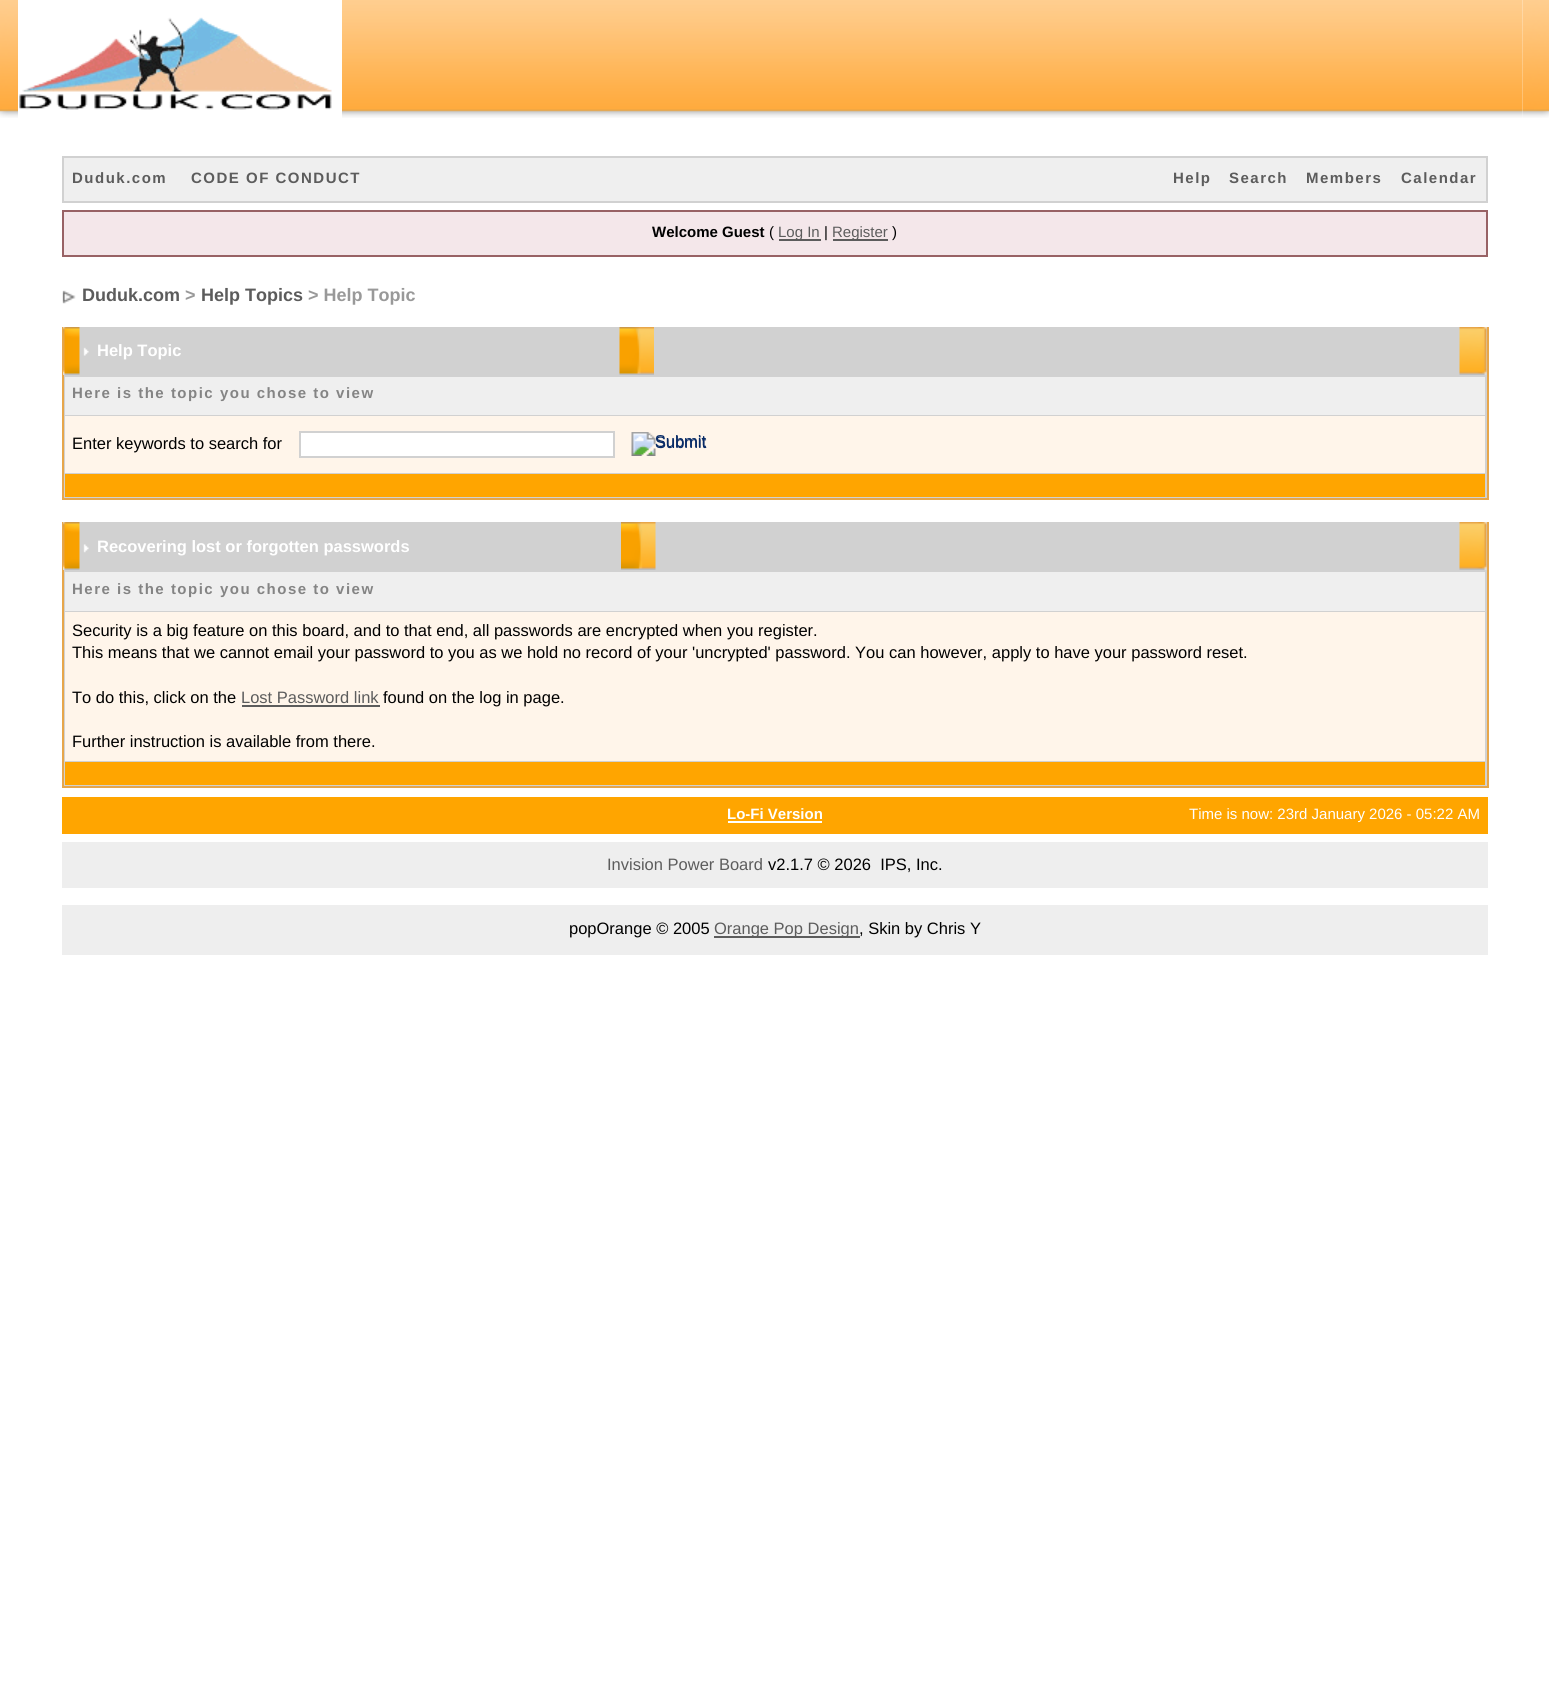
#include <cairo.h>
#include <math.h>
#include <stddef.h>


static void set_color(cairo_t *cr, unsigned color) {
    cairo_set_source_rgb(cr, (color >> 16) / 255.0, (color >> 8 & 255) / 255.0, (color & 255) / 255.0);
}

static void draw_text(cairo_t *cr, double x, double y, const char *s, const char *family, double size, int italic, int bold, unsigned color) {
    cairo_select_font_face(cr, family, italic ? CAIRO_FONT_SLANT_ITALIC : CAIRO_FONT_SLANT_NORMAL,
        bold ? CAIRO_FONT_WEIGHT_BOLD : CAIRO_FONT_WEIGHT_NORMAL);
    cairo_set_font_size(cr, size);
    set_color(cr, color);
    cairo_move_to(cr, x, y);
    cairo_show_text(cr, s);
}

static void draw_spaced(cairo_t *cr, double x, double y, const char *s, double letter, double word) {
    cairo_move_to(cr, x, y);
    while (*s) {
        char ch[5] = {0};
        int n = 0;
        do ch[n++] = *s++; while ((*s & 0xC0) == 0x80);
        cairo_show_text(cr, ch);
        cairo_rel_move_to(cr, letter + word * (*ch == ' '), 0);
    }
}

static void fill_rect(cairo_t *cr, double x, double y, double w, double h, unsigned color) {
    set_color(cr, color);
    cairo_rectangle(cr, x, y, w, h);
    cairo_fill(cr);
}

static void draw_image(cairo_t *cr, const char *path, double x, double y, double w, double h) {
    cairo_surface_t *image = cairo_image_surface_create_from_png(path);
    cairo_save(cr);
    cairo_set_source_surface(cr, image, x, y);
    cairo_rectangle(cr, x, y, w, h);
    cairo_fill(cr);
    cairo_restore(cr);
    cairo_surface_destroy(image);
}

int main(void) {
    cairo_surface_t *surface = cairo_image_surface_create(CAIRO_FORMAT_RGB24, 1549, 1688);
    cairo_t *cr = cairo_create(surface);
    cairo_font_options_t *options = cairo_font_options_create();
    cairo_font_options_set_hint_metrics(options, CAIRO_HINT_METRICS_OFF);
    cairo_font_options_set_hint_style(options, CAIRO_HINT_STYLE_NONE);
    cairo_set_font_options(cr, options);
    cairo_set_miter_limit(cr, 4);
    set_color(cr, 0xFFFFFF);
    cairo_paint(cr);
    draw_image(cr, "assets/img1.png", 0, 0, 18, 118);
    draw_image(cr, "assets/img2.png", 19, 17, 313, 93);
    draw_image(cr, "assets/img3.png", 342, 0, 1181, 118);
    draw_image(cr, "assets/img4.png", 1522, 0, 27, 118);
    set_color(cr, 0xEFEFEF);
    cairo_rectangle(cr, 63, 157, 1424, 45);
    cairo_fill_preserve(cr);
    set_color(cr, 0xD1D1D1);
    cairo_stroke(cr);
    cairo_select_font_face(cr, "Liberation Sans", CAIRO_FONT_SLANT_NORMAL, CAIRO_FONT_WEIGHT_BOLD);
    cairo_set_font_size(cr, 15);
    set_color(cr, 0x5C5C5C);
    draw_spaced(cr, 72, 183, "Duduk.com", 1.5, 0);
    draw_spaced(cr, 191, 183, "CODE OF CONDUCT", 1.5, 0);
    draw_spaced(cr, 1173, 183, "Help", 1.5, 0);
    draw_spaced(cr, 1229, 183, "Search", 1.5, 0);
    draw_spaced(cr, 1306, 183, "Members", 1.5, 0);
    draw_spaced(cr, 1401, 183, "Calendar", 1.5, 0);
    set_color(cr, 0xF4E7EA);
    cairo_rectangle(cr, 63, 211, 1424, 45);
    cairo_fill_preserve(cr);
    set_color(cr, 0x986265);
    cairo_stroke(cr);
    draw_text(cr, 652, 237, "Welcome Guest", "Liberation Sans", 15, 0, 1, 0x000000);
    draw_text(cr, 769, 237, "(", "Liberation Sans", 15, 0, 0, 0x000000);
    fill_rect(cr, 779, 239, 42, 2, 0x5C5C5C);
    draw_text(cr, 778, 237, "Log In", "Liberation Sans", 15, 0, 0, 0x5C5C5C);
    draw_text(cr, 824, 237, "|", "Liberation Sans", 15, 0, 0, 0x000000);
    fill_rect(cr, 833, 239, 55, 2, 0x5C5C5C);
    draw_text(cr, 832, 237, "Register", "Liberation Sans", 15, 0, 0, 0x5C5C5C);
    draw_text(cr, 892, 237, ")", "Liberation Sans", 15, 0, 0, 0x000000);
    draw_image(cr, "assets/img5.png", 62, 290, 14, 14);
    draw_text(cr, 82, 301, "Duduk.com", "Liberation Sans", 18, 0, 1, 0x5C5C5C);
    draw_text(cr, 185, 301, ">", "Liberation Sans", 18, 0, 1, 0x999999);
    draw_text(cr, 201, 301, "Help Topics", "Liberation Sans", 18, 0, 1, 0x5C5C5C);
    draw_text(cr, 308, 301, "> Help Topic", "Liberation Sans", 18, 0, 1, 0x999999);
    fill_rect(cr, 64, 327, 1423, 171, 0xD1D1D1);
    fill_rect(cr, 1487, 327, 2, 173, 0xE7A64A);
    fill_rect(cr, 62, 498, 1426, 2, 0xE7A64A);
    fill_rect(cr, 62, 327, 2, 173, 0xE7A64A);
    draw_image(cr, "assets/img6.png", 63, 327, 17, 48);
    draw_image(cr, "assets/img7.png", 83, 347, 6, 9);
    draw_text(cr, 97, 356, "Help Topic", "Liberation Sans", 16.5, 0, 1, 0xFFFFFF);
    draw_image(cr, "assets/img8.png", 619, 327, 35, 48);
    draw_image(cr, "assets/img9.png", 1459, 327, 28, 48);
    fill_rect(cr, 65, 377, 1420, 38, 0xEFEFEF);
    cairo_set_font_size(cr, 15);
    set_color(cr, 0x848484);
    draw_spaced(cr, 72, 398, "Here is the topic you chose to view", 1.5, 0);
    fill_rect(cr, 65, 416, 1420, 57, 0xFFF5EA);
    draw_text(cr, 72, 449, "Enter keywords to search for", "Liberation Sans", 16.5, 0, 0, 0x000000);
    set_color(cr, 0xFFFFFF);
    cairo_rectangle(cr, 300, 432, 314, 25);
    cairo_fill_preserve(cr);
    set_color(cr, 0xD1D1D1);
    cairo_stroke(cr);
    draw_image(cr, "assets/img10.png", 631, 432, 75, 24);
    draw_text(cr, 655, 448, "Submit", "Liberation Sans", 16.5, 0, 0, 0x072A66);
    fill_rect(cr, 65, 474, 1420, 23, 0xFFA500);
    fill_rect(cr, 64, 522, 1423, 264, 0xD1D1D1);
    fill_rect(cr, 1487, 522, 2, 266, 0xE7A64A);
    fill_rect(cr, 62, 786, 1426, 2, 0xE7A64A);
    fill_rect(cr, 62, 522, 2, 266, 0xE7A64A);
    draw_image(cr, "assets/img6.png", 63, 522, 17, 48);
    draw_image(cr, "assets/img11.png", 83, 544, 6, 9);
    draw_text(cr, 97, 552, "Recovering lost or forgotten passwords", "Liberation Sans", 16.5, 0, 1, 0xFFFFFF);
    draw_image(cr, "assets/img12.png", 621, 522, 35, 48);
    draw_image(cr, "assets/img9.png", 1459, 522, 28, 48);
    fill_rect(cr, 65, 572, 1420, 39, 0xEFEFEF);
    cairo_set_font_size(cr, 15);
    set_color(cr, 0x848484);
    draw_spaced(cr, 72, 594, "Here is the topic you chose to view", 1.5, 0);
    fill_rect(cr, 65, 612, 1420, 149, 0xFFF5EA);
    draw_text(cr, 72, 636, "Security is a big feature on this board, and to that end, all passwords are encrypted when you register.", "Liberation Sans", 16.5, 0, 0, 0x000000);
    draw_text(cr, 72, 658, "This means that we cannot email your password to you as we hold no record of your 'uncrypted' password. You can however, apply to have your password reset.", "Liberation Sans", 16.5, 0, 0, 0x000000);
    draw_text(cr, 72, 703, "To do this, click on the", "Liberation Sans", 16.5, 0, 0, 0x000000);
    draw_text(cr, 241, 703, "Lost Password link", "Liberation Sans", 16.5, 0, 0, 0x5C5C5C);
    fill_rect(cr, 242, 705, 138, 2, 0x5C5C5C);
    draw_text(cr, 383, 703, "found on the log in page.", "Liberation Sans", 16.5, 0, 0, 0x000000);
    draw_text(cr, 72, 747, "Further instruction is available from there.", "Liberation Sans", 16.5, 0, 0, 0x000000);
    fill_rect(cr, 65, 762, 1420, 23, 0xFFA500);
    fill_rect(cr, 62, 797, 1426, 37, 0xFFA500);
    draw_text(cr, 727, 819, "Lo-Fi Version", "Liberation Sans", 15, 0, 1, 0xFFFFFF);
    fill_rect(cr, 728, 821, 94, 2, 0xFFFFFF);
    draw_text(cr, 1189, 819, "Time is now: 23rd January 2026 - 05:22 AM", "Liberation Sans", 15, 0, 0, 0xFFFFFF);
    fill_rect(cr, 62, 842, 1426, 46, 0xEEEEEE);
    draw_text(cr, 607, 870, "Invision Power Board", "Liberation Sans", 16.5, 0, 0, 0x5C5C5C);
    draw_text(cr, 768, 870, "v2.1.7 © 2026  IPS, Inc.", "Liberation Sans", 16.5, 0, 0, 0x000000);
    fill_rect(cr, 62, 905, 1426, 50, 0xEEEEEE);
    draw_text(cr, 569, 934, "popOrange © 2005", "Liberation Sans", 16.5, 0, 0, 0x000000);
    fill_rect(cr, 714, 936, 146, 2, 0x5C5C5C);
    draw_text(cr, 714, 934, "Orange Pop Design", "Liberation Sans", 16.5, 0, 0, 0x5C5C5C);
    draw_text(cr, 859, 934, ", Skin by Chris Y", "Liberation Sans", 16.5, 0, 0, 0x000000);
    cairo_surface_write_to_png(surface, "output.png");
    cairo_font_options_destroy(options);
    cairo_destroy(cr);
    cairo_surface_destroy(surface);
    return 0;
}
